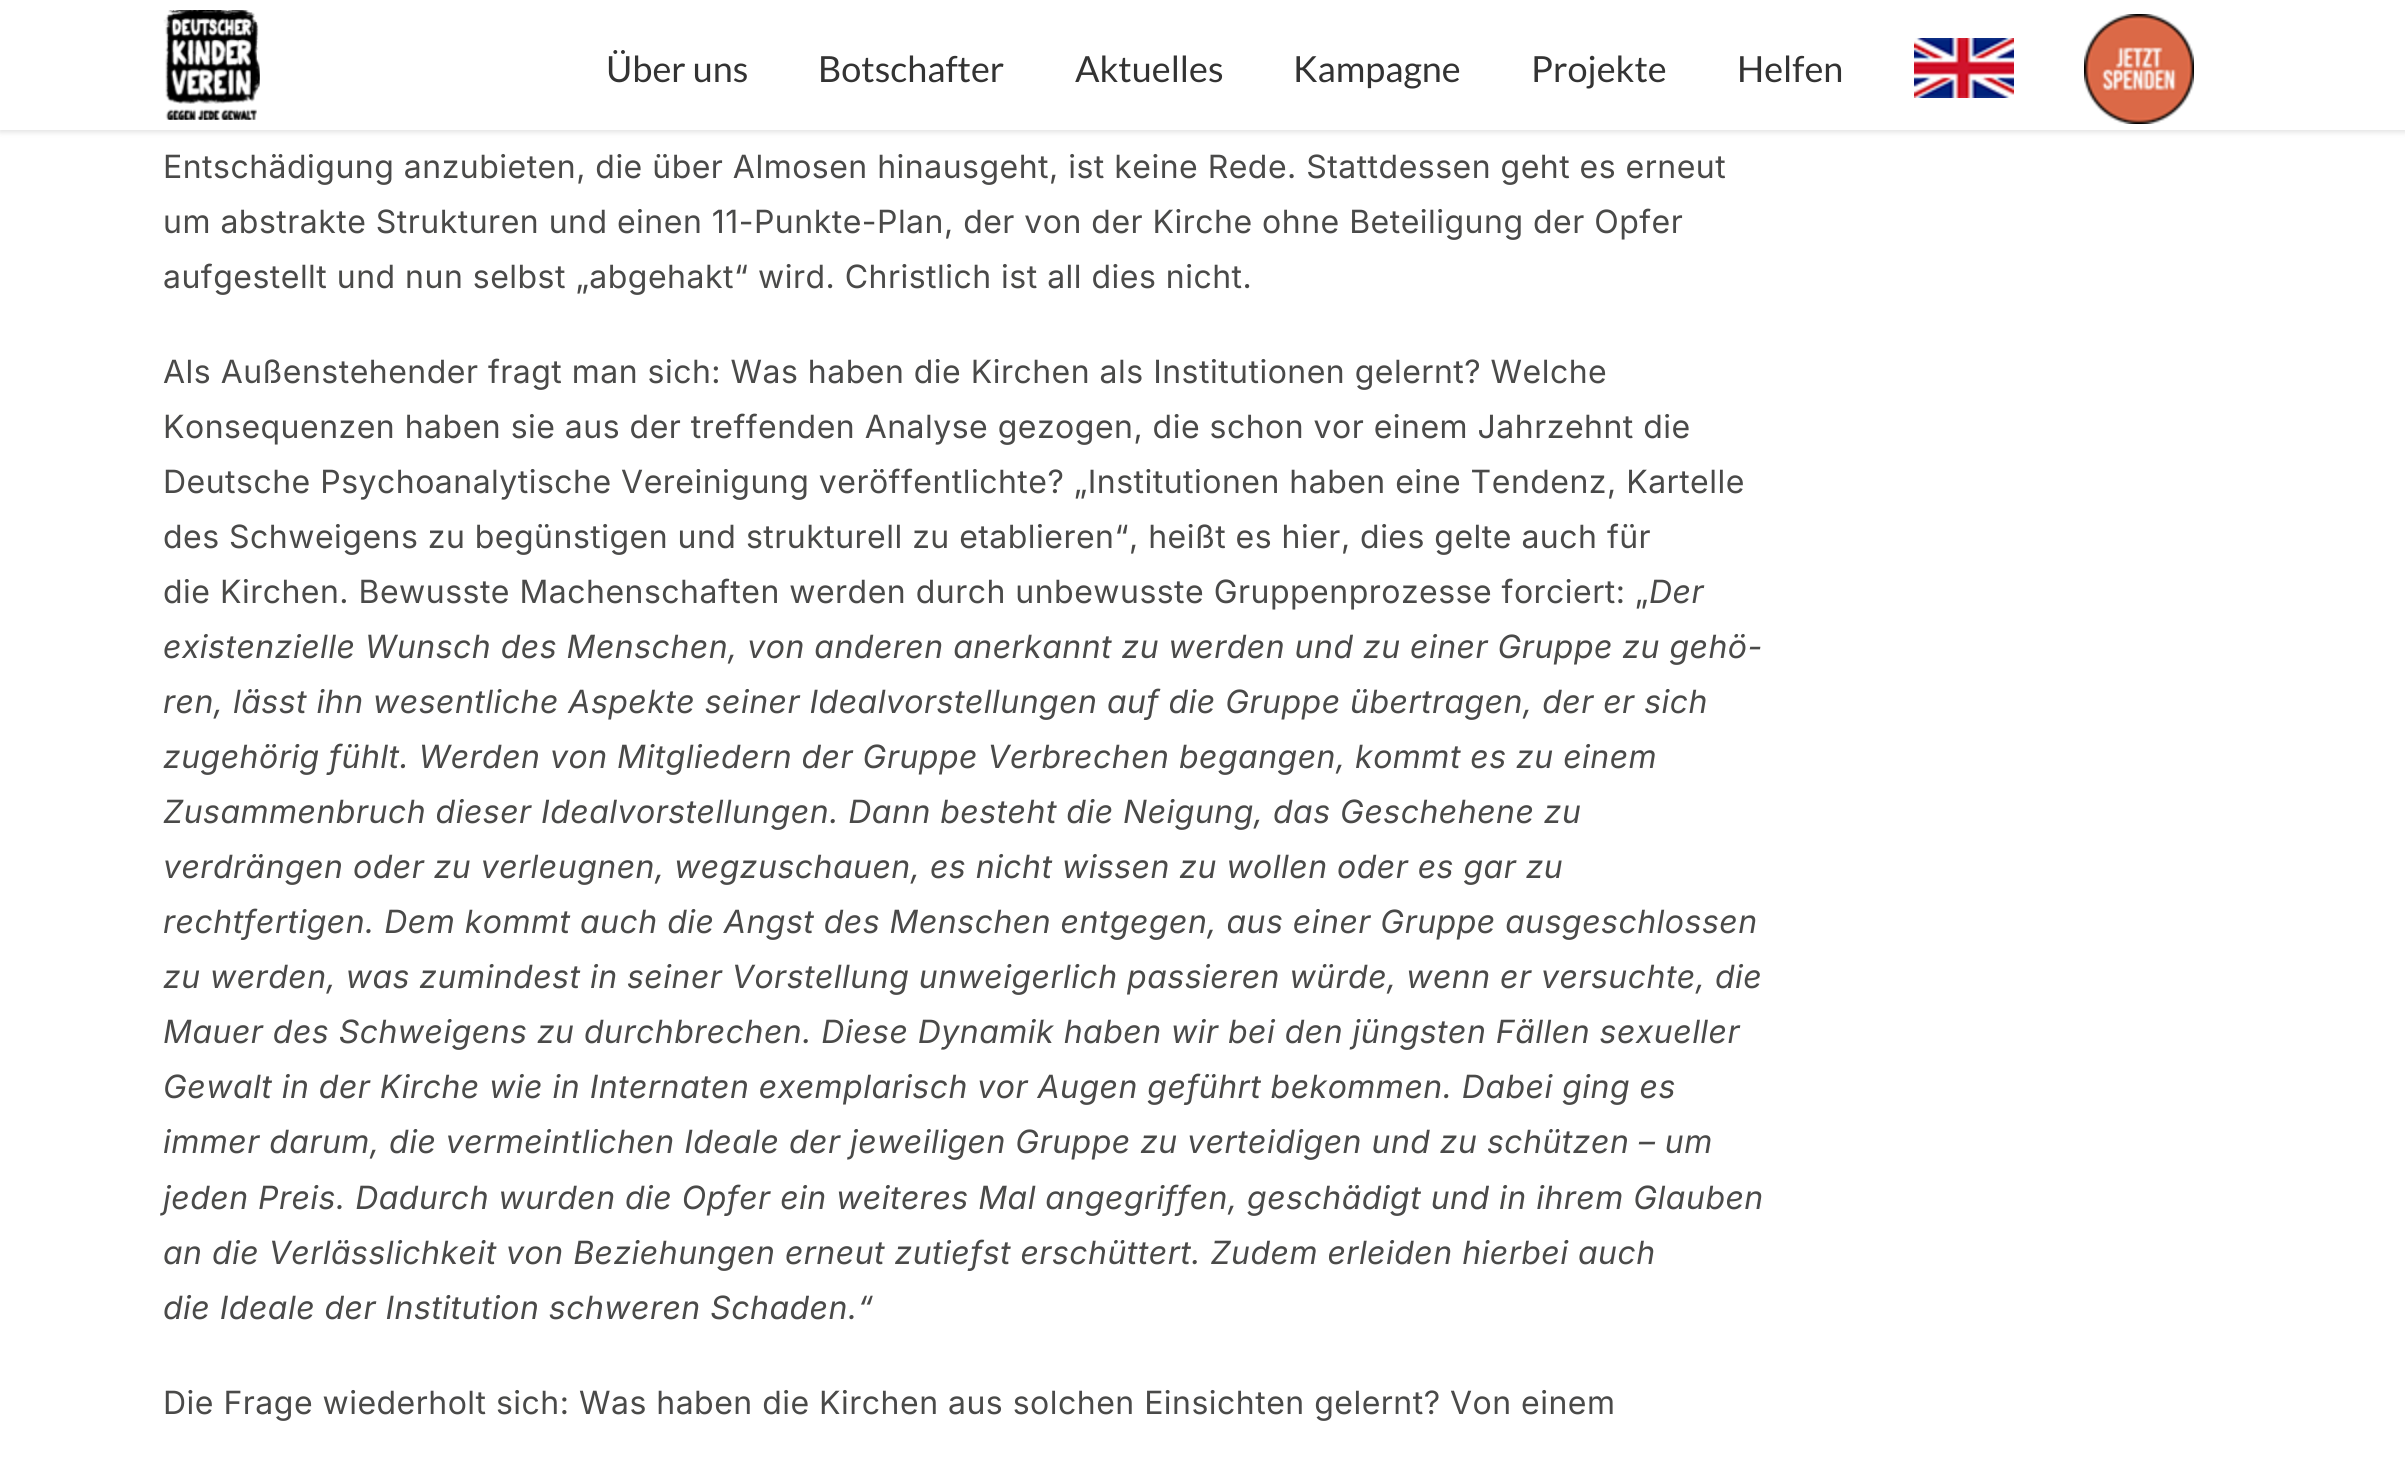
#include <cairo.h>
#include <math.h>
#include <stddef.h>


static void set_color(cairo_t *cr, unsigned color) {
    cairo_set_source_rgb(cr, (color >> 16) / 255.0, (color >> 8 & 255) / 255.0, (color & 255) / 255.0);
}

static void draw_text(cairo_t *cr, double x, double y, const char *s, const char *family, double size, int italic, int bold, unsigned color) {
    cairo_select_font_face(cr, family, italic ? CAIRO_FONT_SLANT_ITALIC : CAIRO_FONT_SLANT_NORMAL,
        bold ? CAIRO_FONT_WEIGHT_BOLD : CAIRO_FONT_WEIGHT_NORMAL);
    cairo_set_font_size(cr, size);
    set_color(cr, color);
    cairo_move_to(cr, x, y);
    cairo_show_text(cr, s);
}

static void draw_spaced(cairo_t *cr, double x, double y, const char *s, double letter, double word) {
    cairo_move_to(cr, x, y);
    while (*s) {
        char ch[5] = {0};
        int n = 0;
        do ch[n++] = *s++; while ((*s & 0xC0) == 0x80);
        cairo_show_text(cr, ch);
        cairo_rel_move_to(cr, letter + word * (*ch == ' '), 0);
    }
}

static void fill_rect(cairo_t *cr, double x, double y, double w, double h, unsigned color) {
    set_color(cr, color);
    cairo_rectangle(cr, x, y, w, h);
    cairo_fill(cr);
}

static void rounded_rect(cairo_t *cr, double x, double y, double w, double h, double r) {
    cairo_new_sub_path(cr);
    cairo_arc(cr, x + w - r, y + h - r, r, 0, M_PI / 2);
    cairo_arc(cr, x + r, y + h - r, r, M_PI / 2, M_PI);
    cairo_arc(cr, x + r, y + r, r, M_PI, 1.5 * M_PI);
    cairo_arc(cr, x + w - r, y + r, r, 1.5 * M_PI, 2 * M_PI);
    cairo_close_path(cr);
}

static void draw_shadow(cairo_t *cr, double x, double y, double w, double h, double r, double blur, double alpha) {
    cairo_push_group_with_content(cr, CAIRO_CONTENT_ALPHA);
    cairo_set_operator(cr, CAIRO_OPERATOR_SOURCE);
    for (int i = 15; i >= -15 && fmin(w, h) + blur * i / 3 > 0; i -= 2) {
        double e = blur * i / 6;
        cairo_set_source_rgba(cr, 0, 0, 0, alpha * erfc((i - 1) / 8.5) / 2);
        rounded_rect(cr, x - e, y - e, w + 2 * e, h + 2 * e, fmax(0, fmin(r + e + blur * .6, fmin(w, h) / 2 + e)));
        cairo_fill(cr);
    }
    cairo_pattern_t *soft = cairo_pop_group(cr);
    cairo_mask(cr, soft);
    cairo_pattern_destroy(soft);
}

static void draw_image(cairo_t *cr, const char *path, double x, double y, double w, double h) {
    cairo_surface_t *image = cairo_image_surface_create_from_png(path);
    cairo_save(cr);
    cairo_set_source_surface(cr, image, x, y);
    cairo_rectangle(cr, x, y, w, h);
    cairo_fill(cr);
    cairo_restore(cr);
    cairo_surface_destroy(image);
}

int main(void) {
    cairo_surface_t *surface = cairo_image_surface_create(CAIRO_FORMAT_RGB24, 2405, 1459);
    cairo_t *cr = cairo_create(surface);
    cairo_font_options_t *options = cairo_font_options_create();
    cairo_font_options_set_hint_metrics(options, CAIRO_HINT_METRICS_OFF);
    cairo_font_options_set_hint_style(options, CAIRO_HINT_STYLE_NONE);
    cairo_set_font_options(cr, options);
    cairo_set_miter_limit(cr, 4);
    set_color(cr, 0xFFFFFF);
    cairo_paint(cr);
    set_color(cr, 0x000000);
    draw_shadow(cr, 0, 2, 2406, 130, 0, 3, 0.12);
    fill_rect(cr, 0, 0, 2405, 130, 0xFFFFFF);
    draw_image(cr, "assets/img1.png", 163, 10, 97, 110);
    draw_text(cr, 606, 82, "Über uns", "Lato", 36, 0, 0, 0x333333);
    draw_text(cr, 818, 82, "Botschafter", "Lato", 36, 0, 0, 0x333333);
    draw_text(cr, 1075, 82, "Aktuelles", "Lato", 36, 0, 0, 0x333333);
    draw_text(cr, 1293, 82, "Kampagne", "Lato", 36, 0, 0, 0x333333);
    draw_text(cr, 1531, 82, "Projekte", "Lato", 36, 0, 0, 0x333333);
    draw_text(cr, 1737, 82, "Helfen", "Lato", 36, 0, 0, 0x333333);
    draw_image(cr, "assets/img2.png", 1914, 38, 100, 60);
    draw_image(cr, "assets/img3.png", 2084, 14, 110, 110);
    cairo_select_font_face(cr, "Inter", CAIRO_FONT_SLANT_NORMAL, CAIRO_FONT_WEIGHT_NORMAL);
    cairo_set_font_size(cr, 32);
    set_color(cr, 0x4A4A49);
    draw_spaced(cr, 163, 178, "Entschädigung anzubieten, die über Almosen hinausgeht, ist keine Rede. Stattdessen geht es erneut", 0.48, 0);
    draw_spaced(cr, 163, 233, "um abstrakte Strukturen und einen 11-Punkte-Plan, der von der Kirche ohne Beteiligung der Opfer", 0.48, 0);
    draw_spaced(cr, 163, 288, "aufgestellt und nun selbst „abgehakt“ wird. Christlich ist all dies nicht.", 0.48, 0);
    draw_spaced(cr, 163, 383, "Als Außenstehender fragt man sich: Was haben die Kirchen als Institutionen gelernt? Welche", 0.48, 0);
    draw_spaced(cr, 163, 438, "Konsequenzen haben sie aus der treffenden Analyse gezogen, die schon vor einem Jahrzehnt die", 0.48, 0);
    draw_spaced(cr, 163, 493, "Deutsche Psychoanalytische Vereinigung veröffentlichte? „Institutionen haben eine Tendenz, Kartelle", 0.48, 0);
    draw_spaced(cr, 163, 548, "des Schweigens zu begünstigen und strukturell zu etablieren“, heißt es hier, dies gelte auch für", 0.48, 0);
    draw_spaced(cr, 163, 603, "die Kirchen. Bewusste Machenschaften werden durch unbewusste Gruppenprozesse forciert: „", 0.48, 0);
    cairo_select_font_face(cr, "Inter", CAIRO_FONT_SLANT_ITALIC, CAIRO_FONT_WEIGHT_NORMAL);
    draw_spaced(cr, 1649, 603, "Der", 0.48, 0);
    draw_spaced(cr, 163, 658, "existenzielle Wunsch des Menschen, von anderen anerkannt zu werden und zu einer Gruppe zu gehö-", 0.48, 0);
    draw_spaced(cr, 163, 713, "ren, lässt ihn wesentliche Aspekte seiner Idealvorstellungen auf die Gruppe übertragen, der er sich", 0.48, 0);
    draw_spaced(cr, 163, 768, "zugehörig fühlt. Werden von Mitgliedern der Gruppe Verbrechen begangen, kommt es zu einem", 0.48, 0);
    draw_spaced(cr, 163, 823, "Zusammenbruch dieser Idealvorstellungen. Dann besteht die Neigung, das Geschehene zu", 0.48, 0);
    draw_spaced(cr, 163, 878, "verdrängen oder zu verleugnen, wegzuschauen, es nicht wissen zu wollen oder es gar zu", 0.48, 0);
    draw_spaced(cr, 163, 933, "rechtfertigen. Dem kommt auch die Angst des Menschen entgegen, aus einer Gruppe ausgeschlossen", 0.48, 0);
    draw_spaced(cr, 163, 988, "zu werden, was zumindest in seiner Vorstellung unweigerlich passieren würde, wenn er versuchte, die", 0.48, 0);
    draw_spaced(cr, 163, 1043, "Mauer des Schweigens zu durchbrechen. Diese Dynamik haben wir bei den jüngsten Fällen sexueller", 0.48, 0);
    draw_spaced(cr, 163, 1098, "Gewalt in der Kirche wie in Internaten exemplarisch vor Augen geführt bekommen. Dabei ging es", 0.48, 0);
    draw_spaced(cr, 163, 1153, "immer darum, die vermeintlichen Ideale der jeweiligen Gruppe zu verteidigen und zu schützen – um", 0.48, 0);
    draw_spaced(cr, 163, 1209, "jeden Preis. Dadurch wurden die Opfer ein weiteres Mal angegriffen, geschädigt und in ihrem Glauben", 0.48, 0);
    draw_spaced(cr, 163, 1264, "an die Verlässlichkeit von Beziehungen erneut zutiefst erschüttert. Zudem erleiden hierbei auch", 0.48, 0);
    draw_spaced(cr, 163, 1319, "die Ideale der Institution schweren Schaden.“", 0.48, 0);
    cairo_select_font_face(cr, "Inter", CAIRO_FONT_SLANT_NORMAL, CAIRO_FONT_WEIGHT_NORMAL);
    draw_spaced(cr, 163, 1414, "Die Frage wiederholt sich: Was haben die Kirchen aus solchen Einsichten gelernt? Von einem", 0.48, 0);
    cairo_surface_write_to_png(surface, "output.png");
    cairo_font_options_destroy(options);
    cairo_destroy(cr);
    cairo_surface_destroy(surface);
    return 0;
}
